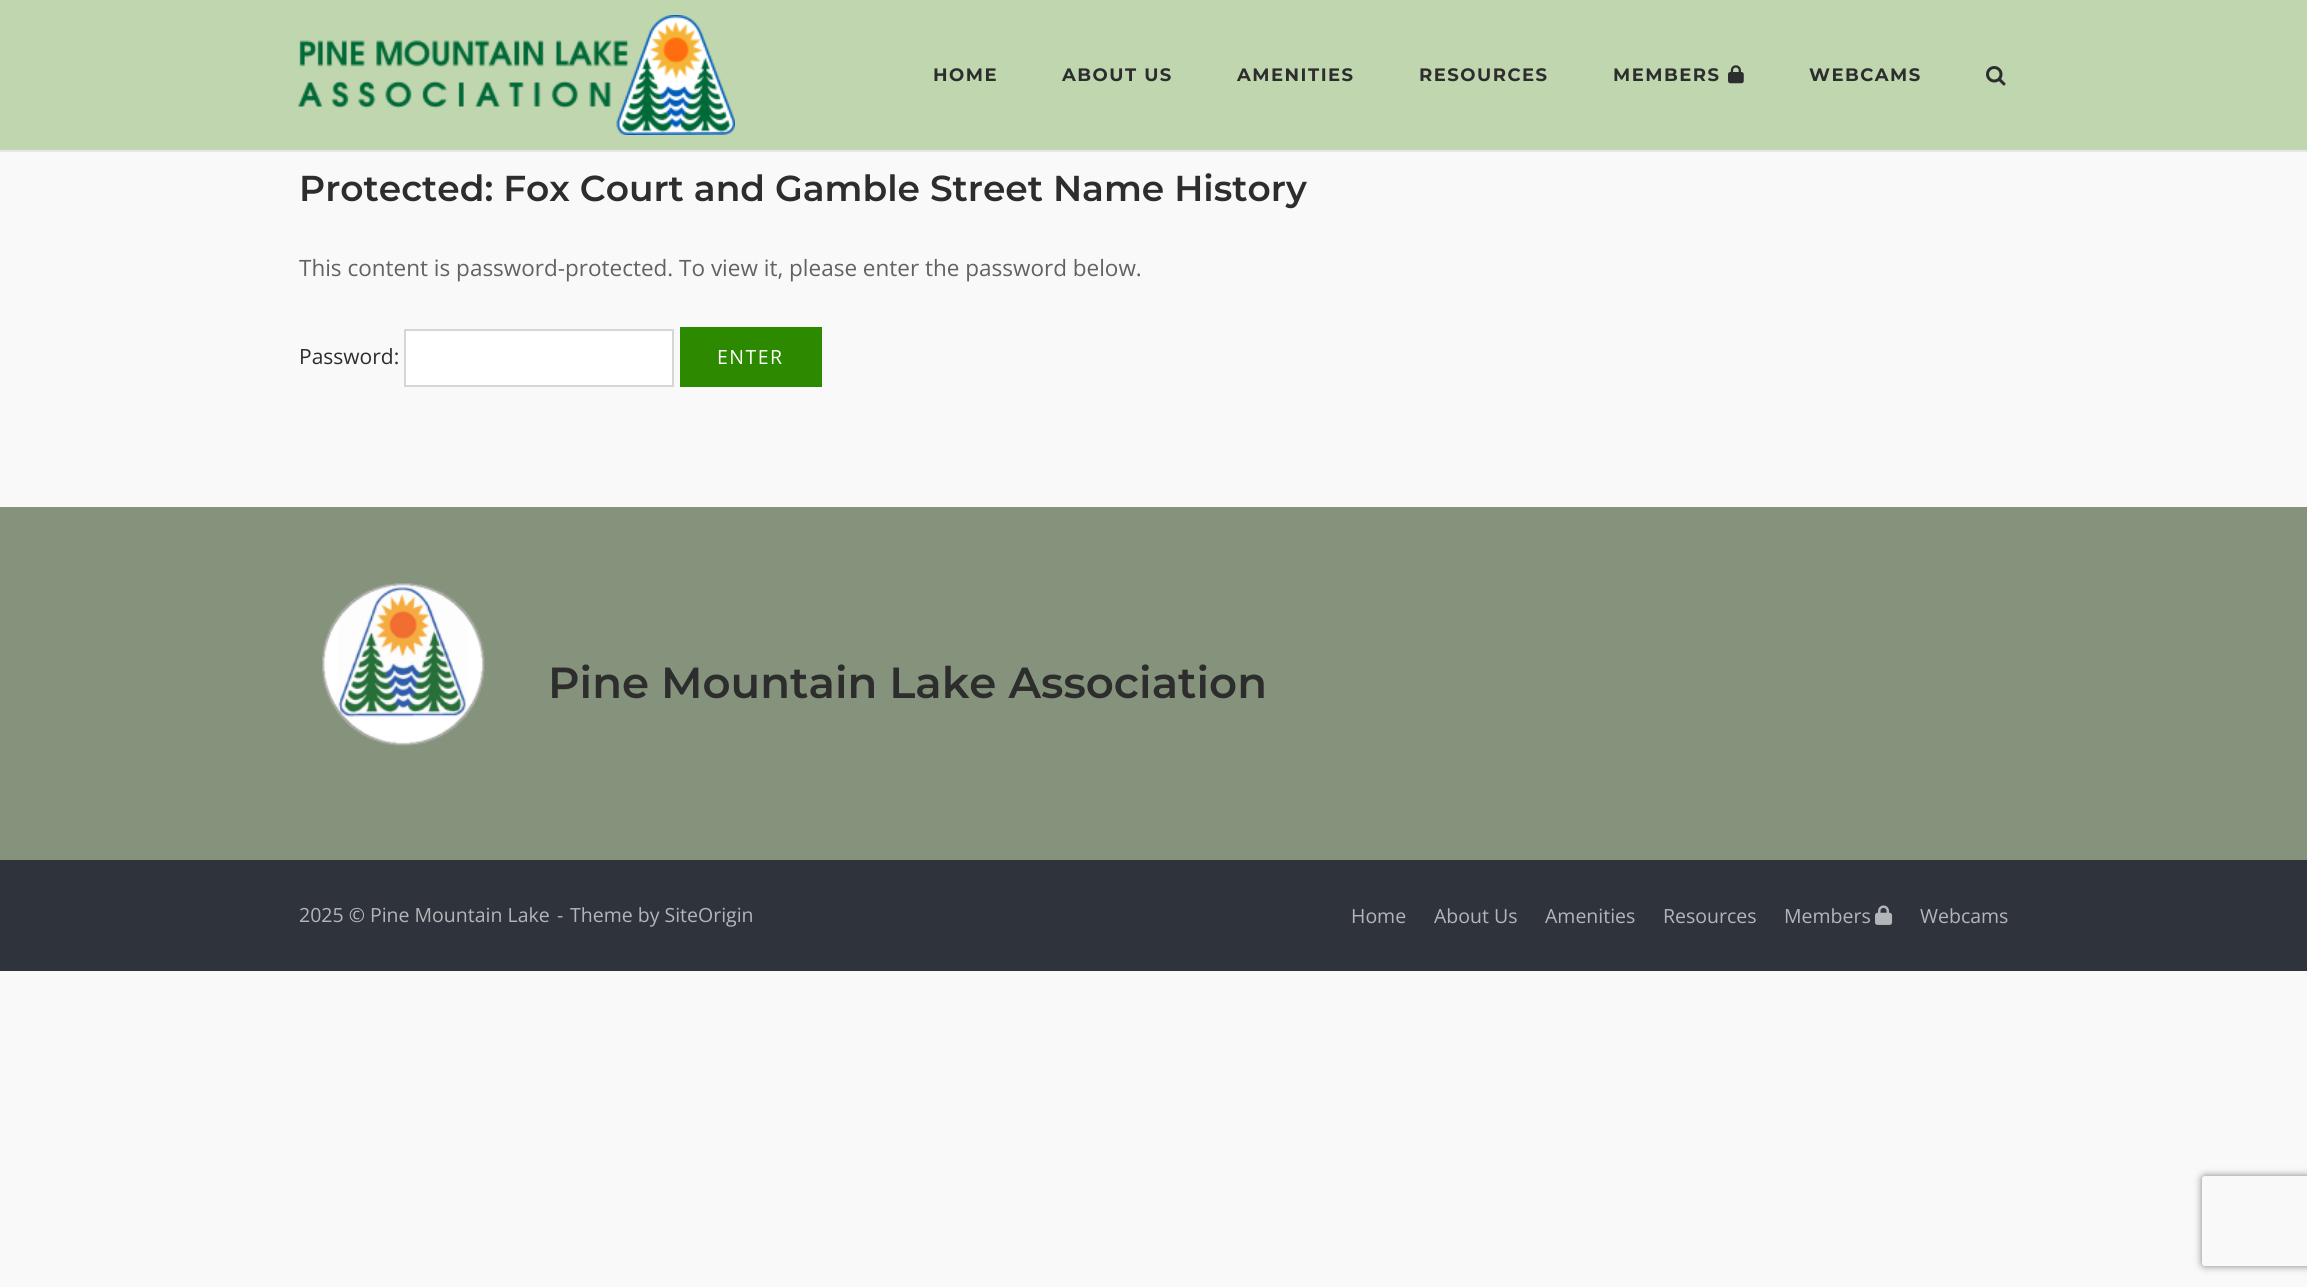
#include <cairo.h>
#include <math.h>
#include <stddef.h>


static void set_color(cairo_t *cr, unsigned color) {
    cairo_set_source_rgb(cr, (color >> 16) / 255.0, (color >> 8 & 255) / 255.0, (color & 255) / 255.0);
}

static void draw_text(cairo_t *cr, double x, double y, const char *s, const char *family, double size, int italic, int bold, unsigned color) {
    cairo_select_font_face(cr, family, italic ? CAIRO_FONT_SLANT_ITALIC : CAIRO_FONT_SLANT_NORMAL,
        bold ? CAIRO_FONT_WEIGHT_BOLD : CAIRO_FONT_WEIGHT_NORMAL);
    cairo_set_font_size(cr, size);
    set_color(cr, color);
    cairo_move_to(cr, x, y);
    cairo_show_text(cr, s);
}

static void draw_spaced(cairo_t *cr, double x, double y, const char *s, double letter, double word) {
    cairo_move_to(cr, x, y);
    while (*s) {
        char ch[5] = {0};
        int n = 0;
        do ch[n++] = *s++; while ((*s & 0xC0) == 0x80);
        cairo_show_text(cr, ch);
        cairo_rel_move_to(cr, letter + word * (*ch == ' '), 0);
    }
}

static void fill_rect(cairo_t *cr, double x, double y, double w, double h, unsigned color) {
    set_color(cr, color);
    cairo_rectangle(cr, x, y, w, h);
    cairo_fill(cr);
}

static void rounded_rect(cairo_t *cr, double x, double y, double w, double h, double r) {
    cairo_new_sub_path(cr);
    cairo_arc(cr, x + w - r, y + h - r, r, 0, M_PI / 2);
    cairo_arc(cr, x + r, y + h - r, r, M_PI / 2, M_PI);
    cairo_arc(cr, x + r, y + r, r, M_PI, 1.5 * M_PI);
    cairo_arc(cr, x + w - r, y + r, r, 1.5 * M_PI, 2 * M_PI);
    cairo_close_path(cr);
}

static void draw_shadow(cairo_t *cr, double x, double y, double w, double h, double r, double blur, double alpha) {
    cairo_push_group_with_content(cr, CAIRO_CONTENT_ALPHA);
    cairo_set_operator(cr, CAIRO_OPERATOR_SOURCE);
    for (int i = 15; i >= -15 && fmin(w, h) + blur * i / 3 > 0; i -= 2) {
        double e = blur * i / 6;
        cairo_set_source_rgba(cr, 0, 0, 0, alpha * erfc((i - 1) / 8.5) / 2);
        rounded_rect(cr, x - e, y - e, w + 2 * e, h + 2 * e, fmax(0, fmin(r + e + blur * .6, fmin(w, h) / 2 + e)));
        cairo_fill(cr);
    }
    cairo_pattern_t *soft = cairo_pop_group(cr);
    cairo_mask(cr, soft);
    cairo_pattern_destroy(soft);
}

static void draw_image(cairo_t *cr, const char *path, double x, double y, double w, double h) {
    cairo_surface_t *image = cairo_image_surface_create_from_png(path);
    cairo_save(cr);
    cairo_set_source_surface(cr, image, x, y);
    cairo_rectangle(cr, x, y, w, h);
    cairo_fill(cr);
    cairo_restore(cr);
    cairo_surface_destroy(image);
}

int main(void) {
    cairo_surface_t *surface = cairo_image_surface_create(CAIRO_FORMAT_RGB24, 2307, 1287);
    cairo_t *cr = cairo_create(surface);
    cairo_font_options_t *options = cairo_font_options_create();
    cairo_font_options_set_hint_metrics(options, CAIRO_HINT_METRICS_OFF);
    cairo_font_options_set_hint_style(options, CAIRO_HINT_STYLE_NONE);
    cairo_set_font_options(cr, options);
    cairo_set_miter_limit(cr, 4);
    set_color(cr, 0xF9F9F9);
    cairo_paint(cr);
    fill_rect(cr, 0, 0, 2307, 150, 0xBFD6AF);
    fill_rect(cr, 0, 150, 2307, 2, 0xE6E6E6);
    draw_image(cr, "assets/img1.png", 298, 15, 437, 120);
    cairo_select_font_face(cr, "Montserrat", CAIRO_FONT_SLANT_NORMAL, CAIRO_FONT_WEIGHT_BOLD);
    cairo_set_font_size(cr, 18);
    set_color(cr, 0x2D2D2D);
    draw_spaced(cr, 933, 81, "HOME", 1.5, 0);
    draw_spaced(cr, 1062, 81, "ABOUT US", 1.5, 0);
    draw_spaced(cr, 1237, 81, "AMENITIES", 1.5, 0);
    draw_spaced(cr, 1419, 81, "RESOURCES", 1.5, 0);
    draw_spaced(cr, 1613, 81, "MEMBERS", 1.5, 0);
    draw_image(cr, "assets/img2.png", 1728, 65, 16, 19);
    draw_spaced(cr, 1809, 81, "WEBCAMS", 1.5, 0);
    draw_image(cr, "assets/img3.png", 1986, 66, 20, 20);
    draw_text(cr, 299, 201, "Protected: Fox Court and Gamble Street Name History", "Montserrat SemiBold", 36, 0, 0, 0x2D2D2D);
    draw_text(cr, 299, 276, "This content is password-protected. To view it, please enter the password below.", "Open Sans", 22.5, 0, 0, 0x626262);
    draw_text(cr, 299, 364, "Password:", "Open Sans", 21, 0, 0, 0x2D2D2D);
    set_color(cr, 0xFFFFFF);
    cairo_rectangle(cr, 405, 330, 268, 56);
    cairo_fill_preserve(cr);
    set_color(cr, 0xD6D6D6);
    cairo_stroke(cr);
    fill_rect(cr, 680, 327, 142, 60, 0x2D8900);
    cairo_set_font_size(cr, 19.5);
    set_color(cr, 0xFFFFFF);
    draw_spaced(cr, 717, 364, "ENTER", 1.5, 0);
    fill_rect(cr, 0, 507, 2307, 353, 0x86937C);
    draw_image(cr, "assets/img4.png", 322, 583, 163, 163);
    draw_text(cr, 548, 698, "Pine Mountain Lake Association", "Montserrat SemiBold", 43.5, 0, 0, 0x2D2D2D);
    fill_rect(cr, 0, 860, 2307, 111, 0x2F333B);
    draw_text(cr, 299, 922, "2025 © Pine Mountain Lake", "Open Sans", 19.5, 0, 0, 0xB4B5B8);
    draw_text(cr, 557, 922, "-", "Open Sans", 19.5, 0, 0, 0xB4B5B8);
    draw_text(cr, 570, 922, "Theme by SiteOrigin", "Open Sans", 19.5, 0, 0, 0xB4B5B8);
    draw_text(cr, 1351, 923, "Home", "Open Sans", 19.5, 0, 0, 0xB4B5B8);
    draw_text(cr, 1434, 923, "About Us", "Open Sans", 19.5, 0, 0, 0xB4B5B8);
    draw_text(cr, 1545, 923, "Amenities", "Open Sans", 19.5, 0, 0, 0xB4B5B8);
    draw_text(cr, 1663, 923, "Resources", "Open Sans", 19.5, 0, 0, 0xB4B5B8);
    draw_text(cr, 1784, 923, "Members", "Open Sans", 19.5, 0, 0, 0xB4B5B8);
    draw_image(cr, "assets/img5.png", 1875, 905, 18, 20);
    draw_text(cr, 1920, 923, "Webcams", "Open Sans", 19.5, 0, 0, 0xB4B5B8);
    cairo_save(cr);
    cairo_set_fill_rule(cr, CAIRO_FILL_RULE_EVEN_ODD);
    cairo_new_path(cr);
    cairo_move_to(cr, 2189, 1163);
    cairo_line_to(cr, 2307, 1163);
    cairo_line_to(cr, 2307, 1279);
    cairo_line_to(cr, 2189, 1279);
    cairo_close_path(cr);
    cairo_move_to(cr, 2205, 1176);
    cairo_line_to(cr, 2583, 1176);
    cairo_curve_to(cr, 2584.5, 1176, 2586, 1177.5, 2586, 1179);
    cairo_line_to(cr, 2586, 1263);
    cairo_curve_to(cr, 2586, 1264.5, 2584.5, 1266, 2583, 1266);
    cairo_line_to(cr, 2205, 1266);
    cairo_curve_to(cr, 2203.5, 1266, 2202, 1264.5, 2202, 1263);
    cairo_line_to(cr, 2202, 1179);
    cairo_curve_to(cr, 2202, 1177.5, 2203.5, 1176, 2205, 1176);
    cairo_close_path(cr);
    cairo_clip(cr);
    set_color(cr, 0x808080);
    draw_shadow(cr, 2202, 1176, 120, 90, 3, 4, 1);
    cairo_restore(cr);
    cairo_surface_write_to_png(surface, "output.png");
    cairo_font_options_destroy(options);
    cairo_destroy(cr);
    cairo_surface_destroy(surface);
    return 0;
}
